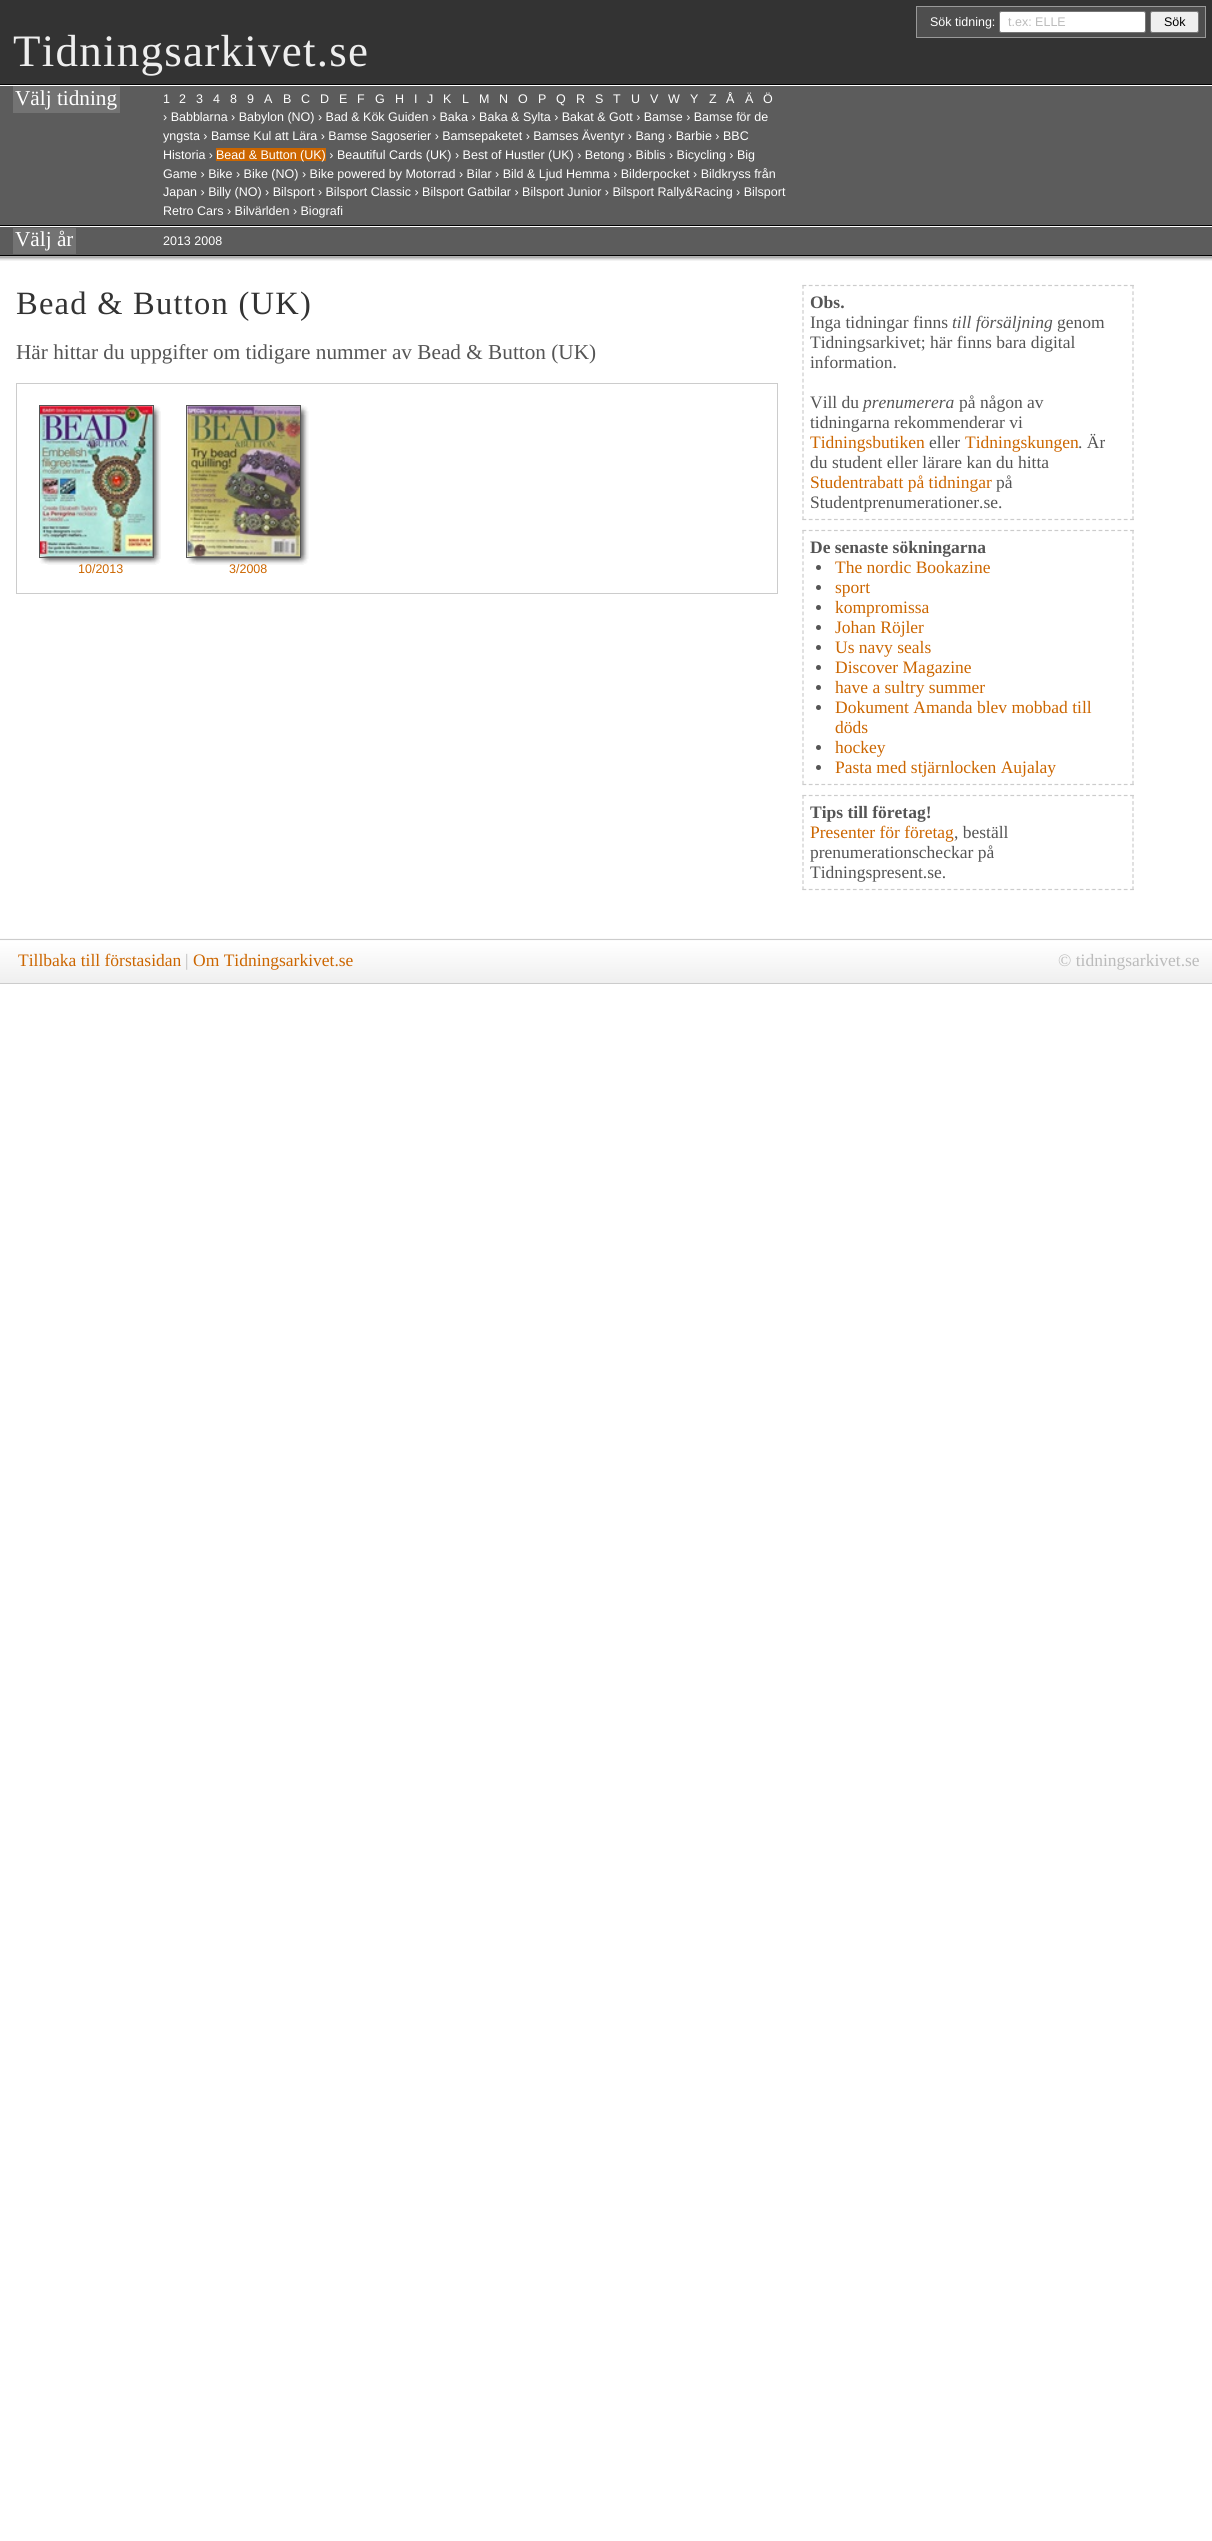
#include <cairo.h>
#include <math.h>
#include <stddef.h>


static void set_color(cairo_t *cr, unsigned color) {
    cairo_set_source_rgb(cr, (color >> 16) / 255.0, (color >> 8 & 255) / 255.0, (color & 255) / 255.0);
}

static void draw_text(cairo_t *cr, double x, double y, const char *s, const char *family, double size, int italic, int bold, unsigned color) {
    cairo_select_font_face(cr, family, italic ? CAIRO_FONT_SLANT_ITALIC : CAIRO_FONT_SLANT_NORMAL,
        bold ? CAIRO_FONT_WEIGHT_BOLD : CAIRO_FONT_WEIGHT_NORMAL);
    cairo_set_font_size(cr, size);
    set_color(cr, color);
    cairo_move_to(cr, x, y);
    cairo_show_text(cr, s);
}

static void draw_spaced(cairo_t *cr, double x, double y, const char *s, double letter, double word) {
    cairo_move_to(cr, x, y);
    while (*s) {
        char ch[5] = {0};
        int n = 0;
        do ch[n++] = *s++; while ((*s & 0xC0) == 0x80);
        cairo_show_text(cr, ch);
        cairo_rel_move_to(cr, letter + word * (*ch == ' '), 0);
    }
}

static void fill_rect(cairo_t *cr, double x, double y, double w, double h, unsigned color) {
    set_color(cr, color);
    cairo_rectangle(cr, x, y, w, h);
    cairo_fill(cr);
}

static void rounded_rect(cairo_t *cr, double x, double y, double w, double h, double r) {
    cairo_new_sub_path(cr);
    cairo_arc(cr, x + w - r, y + h - r, r, 0, M_PI / 2);
    cairo_arc(cr, x + r, y + h - r, r, M_PI / 2, M_PI);
    cairo_arc(cr, x + r, y + r, r, M_PI, 1.5 * M_PI);
    cairo_arc(cr, x + w - r, y + r, r, 1.5 * M_PI, 2 * M_PI);
    cairo_close_path(cr);
}

static void draw_image(cairo_t *cr, const char *path, double x, double y, double w, double h) {
    cairo_surface_t *image = cairo_image_surface_create_from_png(path);
    cairo_save(cr);
    cairo_set_source_surface(cr, image, x, y);
    cairo_rectangle(cr, x, y, w, h);
    cairo_fill(cr);
    cairo_restore(cr);
    cairo_surface_destroy(image);
}

int main(void) {
    cairo_surface_t *surface = cairo_image_surface_create(CAIRO_FORMAT_RGB24, 1212, 2541);
    cairo_t *cr = cairo_create(surface);
    cairo_font_options_t *options = cairo_font_options_create();
    cairo_font_options_set_hint_metrics(options, CAIRO_HINT_METRICS_OFF);
    cairo_font_options_set_hint_style(options, CAIRO_HINT_STYLE_NONE);
    cairo_set_font_options(cr, options);
    cairo_set_miter_limit(cr, 4);
    set_color(cr, 0xFFFFFF);
    cairo_paint(cr);
    fill_rect(cr, 0, 0, 1212, 84, 0x333333);
    fill_rect(cr, 0, 84, 1212, 1, 0x000000);
    set_color(cr, 0x4E4E4E);
    cairo_rectangle(cr, 916.5, 6.5, 289, 31);
    cairo_fill_preserve(cr);
    set_color(cr, 0x999999);
    cairo_set_line_width(cr, 1);
    cairo_stroke(cr);
    draw_text(cr, 930, 26, "Sök tidning:", "Liberation Sans", 12.5, 0, 0, 0xFFFFFF);
    rounded_rect(cr, 999.5, 11.5, 146, 21, 2);
    cairo_fill_preserve(cr);
    set_color(cr, 0x767676);
    cairo_stroke(cr);
    draw_text(cr, 1008, 26, "t.ex: ELLE", "Liberation Sans", 12.5, 0, 0, 0xBBBBBB);
    set_color(cr, 0xEFEFEF);
    rounded_rect(cr, 1150.5, 11.5, 48, 21, 2);
    cairo_fill_preserve(cr);
    set_color(cr, 0x767676);
    cairo_stroke(cr);
    draw_text(cr, 1164, 26, "Sök", "Liberation Sans", 12.5, 0, 0, 0x000000);
    cairo_select_font_face(cr, "Liberation Serif", CAIRO_FONT_SLANT_NORMAL, CAIRO_FONT_WEIGHT_NORMAL);
    cairo_set_font_size(cr, 45);
    set_color(cr, 0xEEEEEE);
    draw_spaced(cr, 13, 66, "Tidningsarkivet.se", 1.25, 0);
    fill_rect(cr, 0, 86, 1212, 139, 0x5C5C5C);
    fill_rect(cr, 0, 225, 1212, 1, 0x000000);
    fill_rect(cr, 13, 86, 107, 27, 0x737373);
    draw_text(cr, 15, 105, "Välj tidning", "Liberation Serif", 21.25, 0, 0, 0xFFFFFF);
    draw_text(cr, 163, 103, "1", "Liberation Sans", 12.5, 0, 0, 0xFFFFFF);
    draw_text(cr, 179, 103, "2", "Liberation Sans", 12.5, 0, 0, 0xFFFFFF);
    draw_text(cr, 196, 103, "3", "Liberation Sans", 12.5, 0, 0, 0xFFFFFF);
    draw_text(cr, 213, 103, "4", "Liberation Sans", 12.5, 0, 0, 0xFFFFFF);
    draw_text(cr, 230, 103, "8", "Liberation Sans", 12.5, 0, 0, 0xFFFFFF);
    draw_text(cr, 247, 103, "9", "Liberation Sans", 12.5, 0, 0, 0xFFFFFF);
    draw_text(cr, 264, 103, "A", "Liberation Sans", 12.5, 0, 0, 0xFFFFFF);
    draw_text(cr, 283, 103, "B", "Liberation Sans", 12.5, 0, 0, 0xFFFFFF);
    draw_text(cr, 301, 103, "C", "Liberation Sans", 12.5, 0, 0, 0xFFFFFF);
    draw_text(cr, 320, 103, "D", "Liberation Sans", 12.5, 0, 0, 0xFFFFFF);
    draw_text(cr, 339, 103, "E", "Liberation Sans", 12.5, 0, 0, 0xFFFFFF);
    draw_text(cr, 357, 103, "F", "Liberation Sans", 12.5, 0, 0, 0xFFFFFF);
    draw_text(cr, 375, 103, "G", "Liberation Sans", 12.5, 0, 0, 0xFFFFFF);
    draw_text(cr, 395, 103, "H", "Liberation Sans", 12.5, 0, 0, 0xFFFFFF);
    draw_text(cr, 414, 103, "I", "Liberation Sans", 12.5, 0, 0, 0xFFFFFF);
    draw_text(cr, 427, 103, "J", "Liberation Sans", 12.5, 0, 0, 0xFFFFFF);
    draw_text(cr, 443, 103, "K", "Liberation Sans", 12.5, 0, 0, 0xFFFFFF);
    draw_text(cr, 462, 103, "L", "Liberation Sans", 12.5, 0, 0, 0xFFFFFF);
    draw_text(cr, 479, 103, "M", "Liberation Sans", 12.5, 0, 0, 0xFFFFFF);
    draw_text(cr, 499, 103, "N", "Liberation Sans", 12.5, 0, 0, 0xFFFFFF);
    draw_text(cr, 518, 103, "O", "Liberation Sans", 12.5, 0, 0, 0xFFFFFF);
    draw_text(cr, 538, 103, "P", "Liberation Sans", 12.5, 0, 0, 0xFFFFFF);
    draw_text(cr, 556, 103, "Q", "Liberation Sans", 12.5, 0, 0, 0xFFFFFF);
    draw_text(cr, 576, 103, "R", "Liberation Sans", 12.5, 0, 0, 0xFFFFFF);
    draw_text(cr, 595, 103, "S", "Liberation Sans", 12.5, 0, 0, 0xFFFFFF);
    draw_text(cr, 613, 103, "T", "Liberation Sans", 12.5, 0, 0, 0xFFFFFF);
    draw_text(cr, 631, 103, "U", "Liberation Sans", 12.5, 0, 0, 0xFFFFFF);
    draw_text(cr, 650, 103, "V", "Liberation Sans", 12.5, 0, 0, 0xFFFFFF);
    draw_text(cr, 668, 103, "W", "Liberation Sans", 12.5, 0, 0, 0xFFFFFF);
    draw_text(cr, 690, 103, "Y", "Liberation Sans", 12.5, 0, 0, 0xFFFFFF);
    draw_text(cr, 709, 103, "Z", "Liberation Sans", 12.5, 0, 0, 0xFFFFFF);
    draw_text(cr, 726, 103, "Å", "Liberation Sans", 12.5, 0, 0, 0xFFFFFF);
    draw_text(cr, 745, 103, "Ä", "Liberation Sans", 12.5, 0, 0, 0xFFFFFF);
    draw_text(cr, 763, 103, "Ö", "Liberation Sans", 12.5, 0, 0, 0xFFFFFF);
    draw_text(cr, 163, 121, "› Babblarna › Babylon (NO) › Bad & Kök Guiden › Baka › Baka & Sylta › Bakat & Gott › Bamse › Bamse för de", "Liberation Sans", 12.5, 0, 0, 0xFFFFFF);
    draw_text(cr, 163, 140, "yngsta › Bamse Kul att Lära › Bamse Sagoserier › Bamsepaketet › Bamses Äventyr › Bang › Barbie › BBC", "Liberation Sans", 12.5, 0, 0, 0xFFFFFF);
    draw_text(cr, 163, 159, "Historia ›", "Liberation Sans", 12.5, 0, 0, 0xFFFFFF);
    fill_rect(cr, 216, 148, 110, 13, 0xCC6600);
    draw_text(cr, 216, 159, "Bead & Button (UK) › Beautiful Cards (UK) › Best of Hustler (UK) › Betong › Biblis › Bicycling › Big", "Liberation Sans", 12.5, 0, 0, 0xFFFFFF);
    draw_text(cr, 163, 178, "Game › Bike › Bike (NO) › Bike powered by Motorrad › Bilar › Bild & Ljud Hemma › Bilderpocket › Bildkryss från", "Liberation Sans", 12.5, 0, 0, 0xFFFFFF);
    draw_text(cr, 163, 196, "Japan › Billy (NO) › Bilsport › Bilsport Classic › Bilsport Gatbilar › Bilsport Junior › Bilsport Rally&Racing › Bilsport", "Liberation Sans", 12.5, 0, 0, 0xFFFFFF);
    draw_text(cr, 163, 215, "Retro Cars › Bilvärlden › Biografi", "Liberation Sans", 12.5, 0, 0, 0xFFFFFF);
    fill_rect(cr, 0, 227, 1212, 28, 0x5C5C5C);
    fill_rect(cr, 0, 255, 1212, 1, 0x000000);
    fill_rect(cr, 13, 228, 63, 26, 0x737373);
    draw_text(cr, 15, 246, "Välj år", "Liberation Serif", 21.25, 0, 0, 0xFFFFFF);
    draw_text(cr, 163, 245, "2013 2008", "Liberation Sans", 12.5, 0, 0, 0xFFFFFF);
    draw_image(cr, "assets/img1.png", 0, 256, 1212, 5);
    cairo_select_font_face(cr, "Liberation Serif", CAIRO_FONT_SLANT_NORMAL, CAIRO_FONT_WEIGHT_NORMAL);
    cairo_set_font_size(cr, 32.5);
    set_color(cr, 0x333333);
    draw_spaced(cr, 16, 314, "Bead & Button (UK)", 1.25, 0);
    draw_text(cr, 16, 359, "Här hittar du uppgifter om tidigare nummer av Bead & Button (UK)", "Liberation Serif", 21.25, 0, 0, 0x555555);
    cairo_rectangle(cr, 16.5, 383.5, 761, 210);
    set_color(cr, 0xCCCCCC);
    cairo_stroke(cr);
    draw_image(cr, "assets/img2.png", 39, 405, 122, 160);
    cairo_rectangle(cr, 39.5, 405.5, 114, 152);
    set_color(cr, 0x555555);
    cairo_stroke(cr);
    draw_image(cr, "assets/img3.png", 40, 406, 113, 151);
    draw_text(cr, 78, 573, "10/2013", "Liberation Sans", 12.5, 0, 0, 0xCC6600);
    draw_image(cr, "assets/img4.png", 186, 405, 123, 160);
    cairo_rectangle(cr, 186.5, 405.5, 114, 152);
    set_color(cr, 0x555555);
    cairo_stroke(cr);
    draw_image(cr, "assets/img5.png", 187, 406, 113, 151);
    draw_text(cr, 229, 573, "3/2008", "Liberation Sans", 12.5, 0, 0, 0xCC6600);
    cairo_new_path(cr);
    cairo_move_to(cr, 802.5, 285.5);
    cairo_line_to(cr, 1134, 285.5);
    set_color(cr, 0xCCCCCC);
    cairo_set_line_width(cr, 1.2);
    cairo_set_dash(cr, (double[]){3.75, 2.55}, 2, 0);
    cairo_stroke(cr);
    cairo_new_path(cr);
    cairo_move_to(cr, 1133, 285);
    cairo_line_to(cr, 1133, 520);
    cairo_set_dash(cr, (double[]){3.75, 2.5}, 2, 0);
    cairo_stroke(cr);
    cairo_new_path(cr);
    cairo_move_to(cr, 802.5, 519.5);
    cairo_line_to(cr, 1134, 519.5);
    cairo_set_dash(cr, (double[]){3.75, 2.55}, 2, 0);
    cairo_stroke(cr);
    cairo_new_path(cr);
    cairo_move_to(cr, 803, 285);
    cairo_line_to(cr, 803, 520);
    cairo_set_dash(cr, (double[]){3.75, 2.5}, 2, 0);
    cairo_stroke(cr);
    draw_text(cr, 810, 308, "Obs.", "Liberation Serif", 17.5, 0, 1, 0x555555);
    draw_text(cr, 810, 328, "Inga tidningar finns", "Liberation Serif", 17.5, 0, 0, 0x555555);
    draw_text(cr, 952, 328, "till försäljning", "Liberation Serif", 17.5, 1, 0, 0x555555);
    draw_text(cr, 1057, 328, "genom", "Liberation Serif", 17.5, 0, 0, 0x555555);
    draw_text(cr, 810, 348, "Tidningsarkivet; här finns bara digital", "Liberation Serif", 17.5, 0, 0, 0x555555);
    draw_text(cr, 810, 368, "information.", "Liberation Serif", 17.5, 0, 0, 0x555555);
    draw_text(cr, 810, 408, "Vill du", "Liberation Serif", 17.5, 0, 0, 0x555555);
    draw_text(cr, 863, 408, "prenumerera", "Liberation Serif", 17.5, 1, 0, 0x555555);
    draw_text(cr, 959, 408, "på någon av", "Liberation Serif", 17.5, 0, 0, 0x555555);
    draw_text(cr, 810, 428, "tidningarna rekommenderar vi", "Liberation Serif", 17.5, 0, 0, 0x555555);
    draw_text(cr, 810, 448, "Tidningsbutiken", "Liberation Serif", 17.5, 0, 0, 0xCC6600);
    draw_text(cr, 929, 448, "eller", "Liberation Serif", 17.5, 0, 0, 0x555555);
    draw_text(cr, 965, 448, "Tidningskungen", "Liberation Serif", 17.5, 0, 0, 0xCC6600);
    draw_text(cr, 1078, 448, ". Är", "Liberation Serif", 17.5, 0, 0, 0x555555);
    draw_text(cr, 810, 468, "du student eller lärare kan du hitta", "Liberation Serif", 17.5, 0, 0, 0x555555);
    draw_text(cr, 810, 488, "Studentrabatt på tidningar", "Liberation Serif", 17.5, 0, 0, 0xCC6600);
    draw_text(cr, 996, 488, "på", "Liberation Serif", 17.5, 0, 0, 0x555555);
    draw_text(cr, 810, 508, "Studentprenumerationer.se.", "Liberation Serif", 17.5, 0, 0, 0x555555);
    cairo_new_path(cr);
    cairo_move_to(cr, 802.5, 530.5);
    cairo_line_to(cr, 1134, 530.5);
    set_color(cr, 0xCCCCCC);
    cairo_set_dash(cr, (double[]){3.75, 2.55}, 2, 0);
    cairo_stroke(cr);
    cairo_new_path(cr);
    cairo_move_to(cr, 1133, 530);
    cairo_line_to(cr, 1133, 785);
    cairo_set_dash(cr, (double[]){3.75, 2.52}, 2, 0);
    cairo_stroke(cr);
    cairo_new_path(cr);
    cairo_move_to(cr, 802.5, 784.5);
    cairo_line_to(cr, 1134, 784.5);
    cairo_set_dash(cr, (double[]){3.75, 2.55}, 2, 0);
    cairo_stroke(cr);
    cairo_new_path(cr);
    cairo_move_to(cr, 803, 530);
    cairo_line_to(cr, 803, 785);
    cairo_set_dash(cr, (double[]){3.75, 2.52}, 2, 0);
    cairo_stroke(cr);
    draw_text(cr, 810, 553, "De senaste sökningarna", "Liberation Serif", 17.5, 0, 1, 0x555555);
    cairo_new_path(cr);
    cairo_arc(cr, 818.5, 567.5, 2.5, 0, 2 * M_PI);
    cairo_fill(cr);
    draw_text(cr, 835, 573, "The nordic Bookazine", "Liberation Serif", 17.5, 0, 0, 0xCC6600);
    set_color(cr, 0x555555);
    cairo_new_path(cr);
    cairo_arc(cr, 818.5, 587.5, 2.5, 0, 2 * M_PI);
    cairo_fill(cr);
    draw_text(cr, 835, 593, "sport", "Liberation Serif", 17.5, 0, 0, 0xCC6600);
    set_color(cr, 0x555555);
    cairo_new_path(cr);
    cairo_arc(cr, 818.5, 607.5, 2.5, 0, 2 * M_PI);
    cairo_fill(cr);
    draw_text(cr, 835, 613, "kompromissa", "Liberation Serif", 17.5, 0, 0, 0xCC6600);
    set_color(cr, 0x555555);
    cairo_new_path(cr);
    cairo_arc(cr, 818.5, 627.5, 2.5, 0, 2 * M_PI);
    cairo_fill(cr);
    draw_text(cr, 835, 633, "Johan Röjler", "Liberation Serif", 17.5, 0, 0, 0xCC6600);
    set_color(cr, 0x555555);
    cairo_new_path(cr);
    cairo_arc(cr, 818.5, 647.5, 2.5, 0, 2 * M_PI);
    cairo_fill(cr);
    draw_text(cr, 835, 653, "Us navy seals", "Liberation Serif", 17.5, 0, 0, 0xCC6600);
    set_color(cr, 0x555555);
    cairo_new_path(cr);
    cairo_arc(cr, 818.5, 667.5, 2.5, 0, 2 * M_PI);
    cairo_fill(cr);
    draw_text(cr, 835, 673, "Discover Magazine", "Liberation Serif", 17.5, 0, 0, 0xCC6600);
    set_color(cr, 0x555555);
    cairo_new_path(cr);
    cairo_arc(cr, 818.5, 687.5, 2.5, 0, 2 * M_PI);
    cairo_fill(cr);
    draw_text(cr, 835, 693, "have a sultry summer", "Liberation Serif", 17.5, 0, 0, 0xCC6600);
    set_color(cr, 0x555555);
    cairo_new_path(cr);
    cairo_arc(cr, 818.5, 707.5, 2.5, 0, 2 * M_PI);
    cairo_fill(cr);
    draw_text(cr, 835, 713, "Dokument Amanda blev mobbad till", "Liberation Serif", 17.5, 0, 0, 0xCC6600);
    draw_text(cr, 835, 733, "döds", "Liberation Serif", 17.5, 0, 0, 0xCC6600);
    set_color(cr, 0x555555);
    cairo_new_path(cr);
    cairo_arc(cr, 818.5, 747.5, 2.5, 0, 2 * M_PI);
    cairo_fill(cr);
    draw_text(cr, 835, 753, "hockey", "Liberation Serif", 17.5, 0, 0, 0xCC6600);
    set_color(cr, 0x555555);
    cairo_new_path(cr);
    cairo_arc(cr, 818.5, 767.5, 2.5, 0, 2 * M_PI);
    cairo_fill(cr);
    draw_text(cr, 835, 773, "Pasta med stjärnlocken Aujalay", "Liberation Serif", 17.5, 0, 0, 0xCC6600);
    cairo_new_path(cr);
    cairo_move_to(cr, 802.5, 795.5);
    cairo_line_to(cr, 1134, 795.5);
    set_color(cr, 0xCCCCCC);
    cairo_set_dash(cr, (double[]){3.75, 2.55}, 2, 0);
    cairo_stroke(cr);
    cairo_new_path(cr);
    cairo_move_to(cr, 1133, 795);
    cairo_line_to(cr, 1133, 890);
    cairo_set_dash(cr, (double[]){3.75, 2.34}, 2, 0);
    cairo_stroke(cr);
    cairo_new_path(cr);
    cairo_move_to(cr, 802.5, 889.5);
    cairo_line_to(cr, 1134, 889.5);
    cairo_set_dash(cr, (double[]){3.75, 2.55}, 2, 0);
    cairo_stroke(cr);
    cairo_new_path(cr);
    cairo_move_to(cr, 803, 795);
    cairo_line_to(cr, 803, 890);
    cairo_set_dash(cr, (double[]){3.75, 2.34}, 2, 0);
    cairo_stroke(cr);
    draw_text(cr, 810, 818, "Tips till företag!", "Liberation Serif", 17.5, 0, 1, 0x555555);
    draw_text(cr, 810, 838, "Presenter för företag", "Liberation Serif", 17.5, 0, 0, 0xCC6600);
    draw_text(cr, 954, 838, ", beställ", "Liberation Serif", 17.5, 0, 0, 0x555555);
    draw_text(cr, 810, 858, "prenumerationscheckar på", "Liberation Serif", 17.5, 0, 0, 0x555555);
    draw_text(cr, 810, 878, "Tidningspresent.se.", "Liberation Serif", 17.5, 0, 0, 0x555555);
    draw_image(cr, "assets/img6.png", 0, 938, 1212, 45);
    fill_rect(cr, 0, 939, 1212, 1, 0xCCCCCC);
    fill_rect(cr, 0, 983, 1212, 1, 0xCCCCCC);
    draw_text(cr, 18, 966, "Tillbaka till förstasidan", "Liberation Serif", 17.5, 0, 0, 0xCC6600);
    draw_text(cr, 185, 966, "|", "Liberation Serif", 17.5, 0, 0, 0xBBBBBB);
    draw_text(cr, 193, 966, "Om Tidningsarkivet.se", "Liberation Serif", 17.5, 0, 0, 0xCC6600);
    draw_text(cr, 1058, 966, "© tidningsarkivet.se", "Liberation Serif", 17.5, 0, 0, 0xBBBBBB);
    cairo_surface_write_to_png(surface, "output.png");
    cairo_font_options_destroy(options);
    cairo_destroy(cr);
    cairo_surface_destroy(surface);
    return 0;
}
